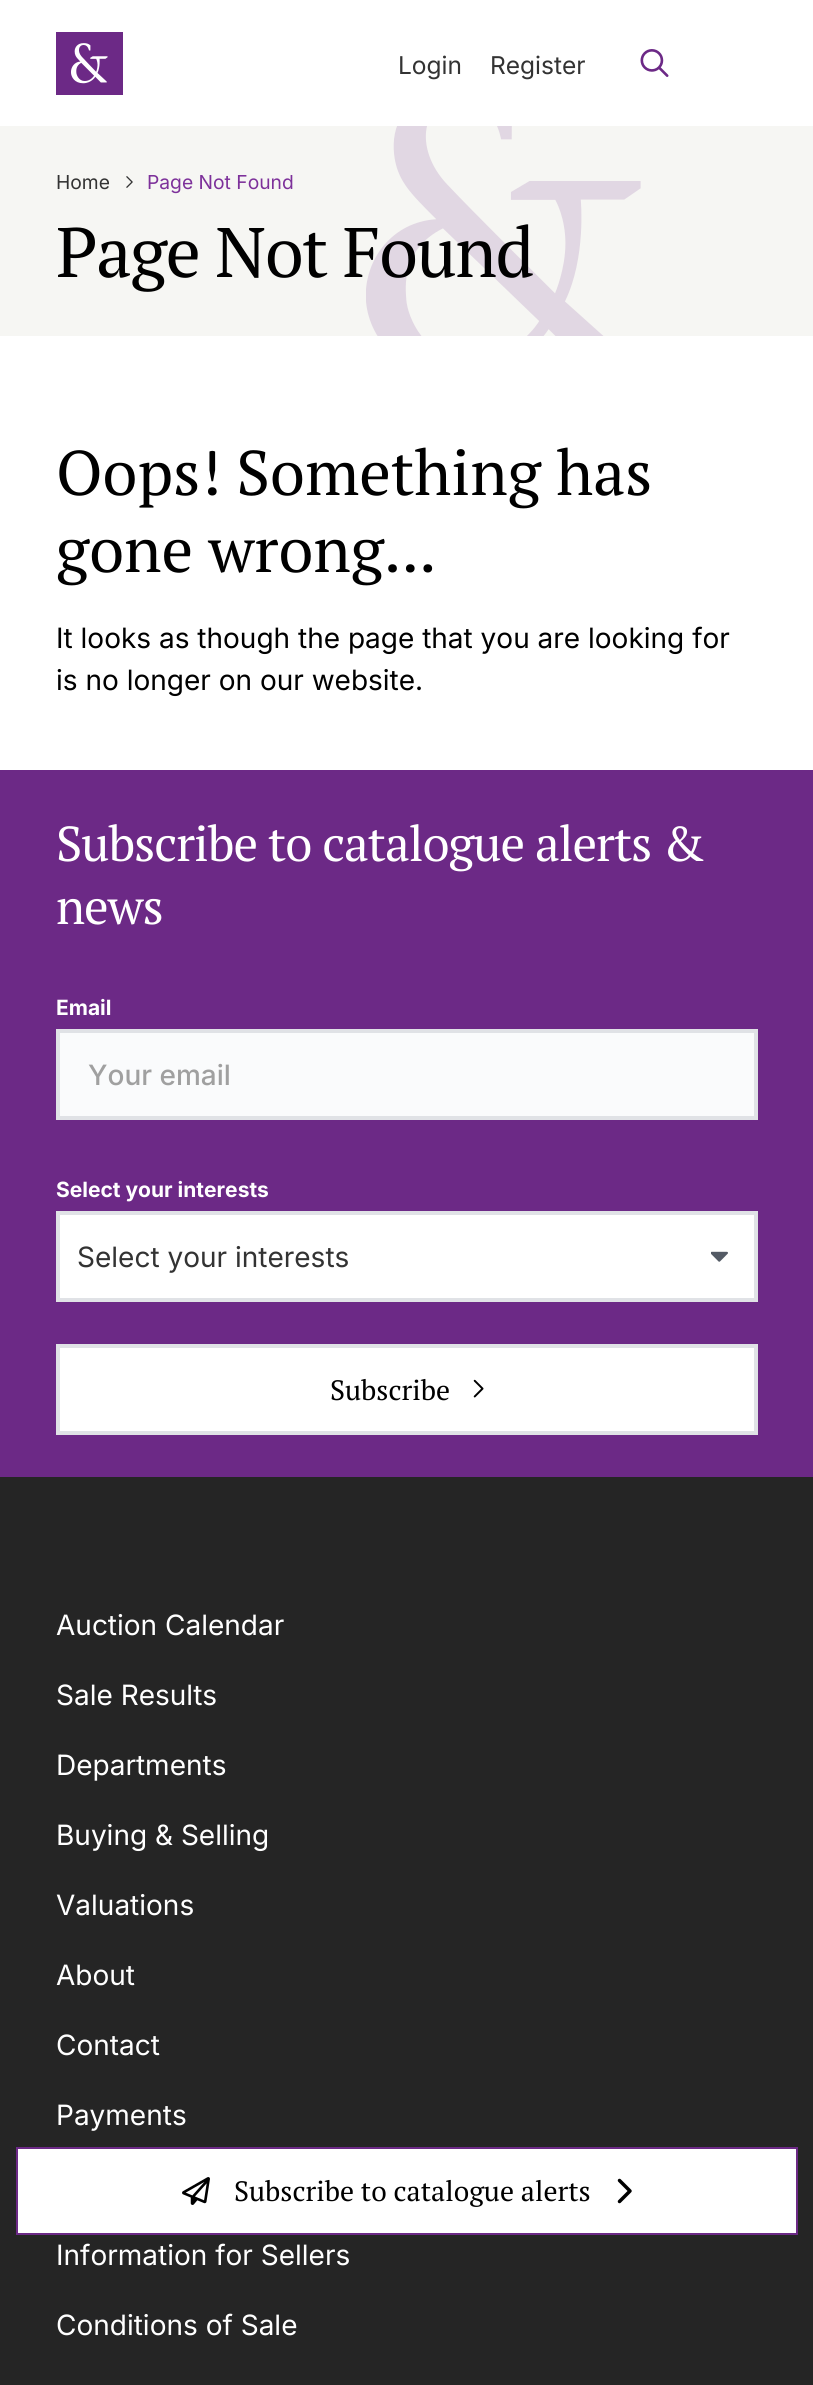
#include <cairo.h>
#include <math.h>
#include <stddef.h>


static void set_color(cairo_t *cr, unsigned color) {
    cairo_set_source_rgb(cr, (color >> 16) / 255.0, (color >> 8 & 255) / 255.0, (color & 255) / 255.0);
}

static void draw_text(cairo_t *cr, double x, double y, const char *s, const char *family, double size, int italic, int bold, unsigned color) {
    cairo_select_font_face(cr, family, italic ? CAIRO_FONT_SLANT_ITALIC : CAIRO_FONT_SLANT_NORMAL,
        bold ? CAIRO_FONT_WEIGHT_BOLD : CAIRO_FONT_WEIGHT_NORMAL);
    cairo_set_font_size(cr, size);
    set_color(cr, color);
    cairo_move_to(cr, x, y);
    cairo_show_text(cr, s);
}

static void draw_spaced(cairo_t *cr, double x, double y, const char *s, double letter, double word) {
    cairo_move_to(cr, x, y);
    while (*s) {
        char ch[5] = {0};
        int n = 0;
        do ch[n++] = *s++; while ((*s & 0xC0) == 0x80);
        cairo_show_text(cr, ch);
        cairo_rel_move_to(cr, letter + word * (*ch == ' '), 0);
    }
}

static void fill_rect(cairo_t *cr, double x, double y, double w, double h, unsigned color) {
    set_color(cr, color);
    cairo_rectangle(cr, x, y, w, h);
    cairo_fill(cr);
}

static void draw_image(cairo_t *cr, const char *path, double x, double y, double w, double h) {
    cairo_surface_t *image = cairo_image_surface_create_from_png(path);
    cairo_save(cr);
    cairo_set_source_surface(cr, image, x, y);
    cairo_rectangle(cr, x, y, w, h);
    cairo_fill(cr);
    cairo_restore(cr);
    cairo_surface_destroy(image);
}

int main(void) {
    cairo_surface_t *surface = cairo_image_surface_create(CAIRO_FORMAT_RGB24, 813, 2385);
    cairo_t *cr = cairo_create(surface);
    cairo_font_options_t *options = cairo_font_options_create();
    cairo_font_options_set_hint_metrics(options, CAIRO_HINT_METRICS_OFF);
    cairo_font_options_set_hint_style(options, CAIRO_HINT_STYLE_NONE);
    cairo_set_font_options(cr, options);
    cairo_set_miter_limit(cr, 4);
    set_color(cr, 0xFFFFFF);
    cairo_paint(cr);
    fill_rect(cr, 56, 32, 67, 63, 0x6C2986);
    draw_image(cr, "assets/img1.png", 71, 43, 37, 41);
    draw_text(cr, 398, 74, "Login", "Inter", 24.5, 0, 0, 0x333333);
    draw_text(cr, 490, 74, "Register", "Inter", 24.5, 0, 0, 0x333333);
    draw_image(cr, "assets/img2.png", 640, 49, 29, 28);
    fill_rect(cr, 0, 126, 813, 210, 0xF6F6F3);
    draw_image(cr, "assets/img3.png", 366, 126, 275, 210);
    draw_text(cr, 56, 189, "Home", "Inter", 19.25, 0, 0, 0x333333);
    draw_image(cr, "assets/img4.png", 126, 176, 7, 12);
    draw_text(cr, 147, 189, "Page Not Found", "Inter", 19.25, 0, 0, 0x7D319A);
    cairo_select_font_face(cr, "PT Serif", CAIRO_FONT_SLANT_NORMAL, CAIRO_FONT_WEIGHT_NORMAL);
    cairo_set_font_size(cr, 70);
    set_color(cr, 0x000000);
    draw_spaced(cr, 56, 277, "Page Not Found", -1.4, 0);
    draw_text(cr, 56, 495, "Oops! Something has", "PT Serif", 63, 0, 0, 0x000000);
    draw_text(cr, 56, 572, "gone wrong...", "PT Serif", 63, 0, 0, 0x000000);
    draw_text(cr, 56, 648, "It looks as though the page that you are looking for", "Inter", 28, 0, 0, 0x000000);
    draw_text(cr, 56, 690, "is no longer on our website.", "Inter", 28, 0, 0, 0x000000);
    fill_rect(cr, 0, 770, 813, 707, 0x6C2986);
    cairo_select_font_face(cr, "PT Serif", CAIRO_FONT_SLANT_NORMAL, CAIRO_FONT_WEIGHT_NORMAL);
    cairo_set_font_size(cr, 49);
    set_color(cr, 0xFFFFFF);
    draw_spaced(cr, 56, 861, "Subscribe to catalogue alerts &", -1, 0);
    draw_spaced(cr, 56, 924, "news", -1, 0);
    draw_text(cr, 56, 1015, "Email", "Inter", 21, 0, 1, 0xFFFFFF);
    set_color(cr, 0xFAFBFC);
    cairo_rectangle(cr, 58, 1031, 698, 87);
    cairo_fill_preserve(cr);
    set_color(cr, 0xE0E2E6);
    cairo_set_line_width(cr, 4);
    cairo_stroke(cr);
    draw_text(cr, 88, 1085, "Your email", "Inter Medium", 28, 0, 0, 0xA0A0A0);
    draw_text(cr, 56, 1197, "Select your interests", "Inter", 21, 0, 1, 0xFFFFFF);
    fill_rect(cr, 60, 1215, 694, 83, 0xFFFFFF);
    draw_image(cr, "assets/img5.png", 711, 1251, 17, 11);
    cairo_rectangle(cr, 58, 1213, 698, 87);
    set_color(cr, 0xE0E2E6);
    cairo_stroke(cr);
    draw_text(cr, 77, 1267, "Select your interests", "Inter", 28, 0, 0, 0x333333);
    set_color(cr, 0xFFFFFF);
    cairo_rectangle(cr, 58, 1346, 698, 87);
    cairo_fill_preserve(cr);
    set_color(cr, 0xE0E2E6);
    cairo_stroke(cr);
    draw_text(cr, 330, 1400, "Subscribe", "PT Serif", 28, 0, 0, 0x000000);
    draw_image(cr, "assets/img6.png", 473, 1379, 11, 19);
    fill_rect(cr, 0, 1477, 813, 908, 0x252525);
    draw_text(cr, 56, 1635, "Auction Calendar", "Inter", 28, 0, 0, 0xFFFFFF);
    draw_text(cr, 56, 1705, "Sale Results", "Inter", 28, 0, 0, 0xFFFFFF);
    draw_text(cr, 56, 1775, "Departments", "Inter", 28, 0, 0, 0xFFFFFF);
    draw_text(cr, 56, 1845, "Buying & Selling", "Inter", 28, 0, 0, 0xFFFFFF);
    draw_text(cr, 56, 1915, "Valuations", "Inter", 28, 0, 0, 0xFFFFFF);
    draw_text(cr, 56, 1985, "About", "Inter", 28, 0, 0, 0xFFFFFF);
    draw_text(cr, 56, 2055, "Contact", "Inter", 28, 0, 0, 0xFFFFFF);
    draw_text(cr, 56, 2125, "Payments", "Inter", 28, 0, 0, 0xFFFFFF);
    draw_text(cr, 56, 2265, "Information for Sellers", "Inter", 28, 0, 0, 0xFFFFFF);
    draw_text(cr, 56, 2335, "Conditions of Sale", "Inter", 28, 0, 0, 0xFFFFFF);
    cairo_rectangle(cr, 17, 2148, 780, 86);
    cairo_fill_preserve(cr);
    set_color(cr, 0x6C2986);
    cairo_set_line_width(cr, 2);
    cairo_stroke(cr);
    draw_image(cr, "assets/img7.png", 182, 2177, 28, 28);
    draw_text(cr, 234, 2201, "Subscribe to catalogue alerts", "PT Serif", 28, 0, 0, 0x000000);
    draw_image(cr, "assets/img8.png", 617, 2178, 15, 26);
    cairo_surface_write_to_png(surface, "output.png");
    cairo_font_options_destroy(options);
    cairo_destroy(cr);
    cairo_surface_destroy(surface);
    return 0;
}
